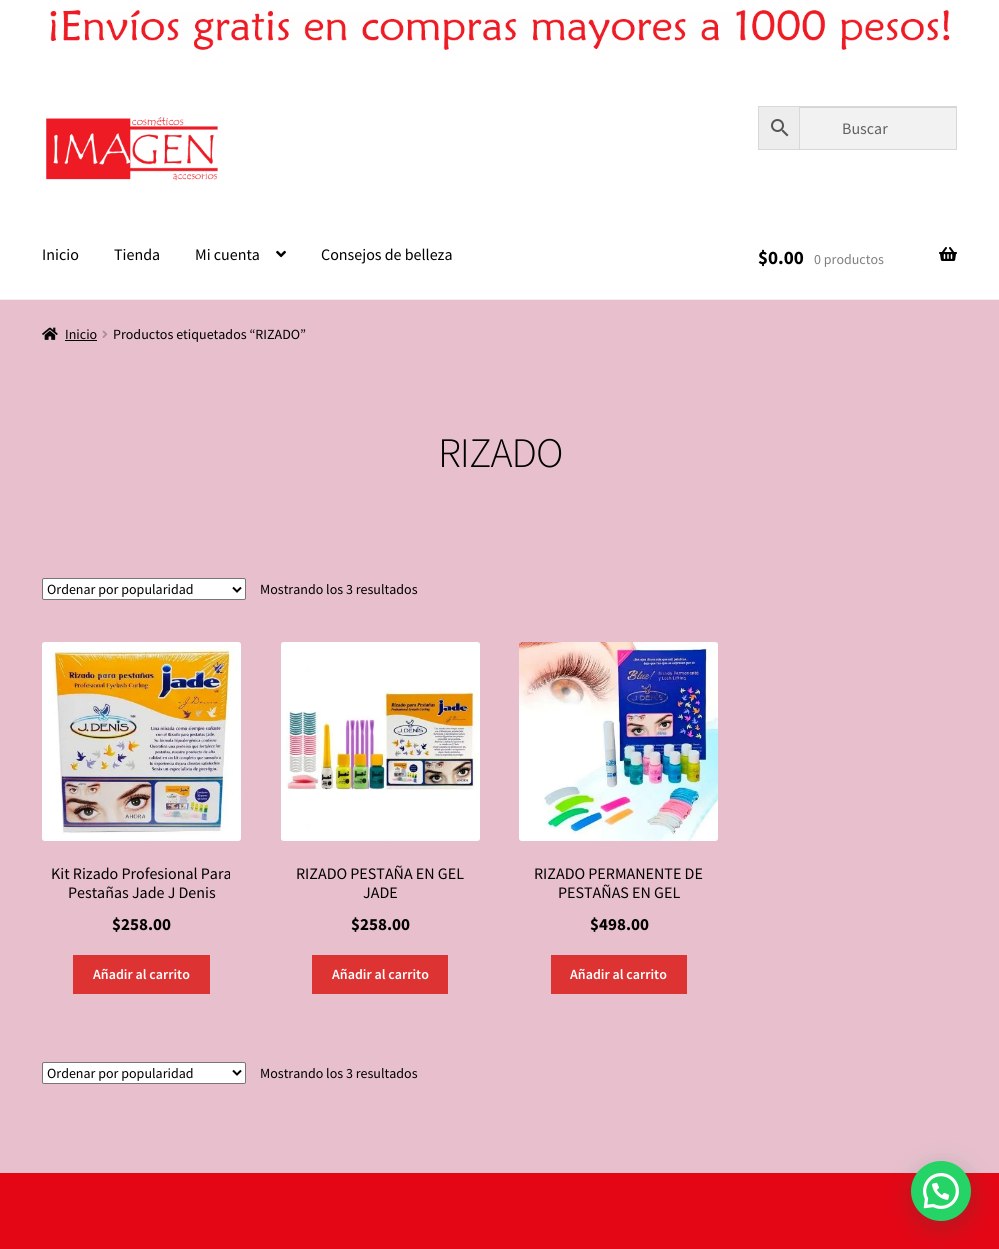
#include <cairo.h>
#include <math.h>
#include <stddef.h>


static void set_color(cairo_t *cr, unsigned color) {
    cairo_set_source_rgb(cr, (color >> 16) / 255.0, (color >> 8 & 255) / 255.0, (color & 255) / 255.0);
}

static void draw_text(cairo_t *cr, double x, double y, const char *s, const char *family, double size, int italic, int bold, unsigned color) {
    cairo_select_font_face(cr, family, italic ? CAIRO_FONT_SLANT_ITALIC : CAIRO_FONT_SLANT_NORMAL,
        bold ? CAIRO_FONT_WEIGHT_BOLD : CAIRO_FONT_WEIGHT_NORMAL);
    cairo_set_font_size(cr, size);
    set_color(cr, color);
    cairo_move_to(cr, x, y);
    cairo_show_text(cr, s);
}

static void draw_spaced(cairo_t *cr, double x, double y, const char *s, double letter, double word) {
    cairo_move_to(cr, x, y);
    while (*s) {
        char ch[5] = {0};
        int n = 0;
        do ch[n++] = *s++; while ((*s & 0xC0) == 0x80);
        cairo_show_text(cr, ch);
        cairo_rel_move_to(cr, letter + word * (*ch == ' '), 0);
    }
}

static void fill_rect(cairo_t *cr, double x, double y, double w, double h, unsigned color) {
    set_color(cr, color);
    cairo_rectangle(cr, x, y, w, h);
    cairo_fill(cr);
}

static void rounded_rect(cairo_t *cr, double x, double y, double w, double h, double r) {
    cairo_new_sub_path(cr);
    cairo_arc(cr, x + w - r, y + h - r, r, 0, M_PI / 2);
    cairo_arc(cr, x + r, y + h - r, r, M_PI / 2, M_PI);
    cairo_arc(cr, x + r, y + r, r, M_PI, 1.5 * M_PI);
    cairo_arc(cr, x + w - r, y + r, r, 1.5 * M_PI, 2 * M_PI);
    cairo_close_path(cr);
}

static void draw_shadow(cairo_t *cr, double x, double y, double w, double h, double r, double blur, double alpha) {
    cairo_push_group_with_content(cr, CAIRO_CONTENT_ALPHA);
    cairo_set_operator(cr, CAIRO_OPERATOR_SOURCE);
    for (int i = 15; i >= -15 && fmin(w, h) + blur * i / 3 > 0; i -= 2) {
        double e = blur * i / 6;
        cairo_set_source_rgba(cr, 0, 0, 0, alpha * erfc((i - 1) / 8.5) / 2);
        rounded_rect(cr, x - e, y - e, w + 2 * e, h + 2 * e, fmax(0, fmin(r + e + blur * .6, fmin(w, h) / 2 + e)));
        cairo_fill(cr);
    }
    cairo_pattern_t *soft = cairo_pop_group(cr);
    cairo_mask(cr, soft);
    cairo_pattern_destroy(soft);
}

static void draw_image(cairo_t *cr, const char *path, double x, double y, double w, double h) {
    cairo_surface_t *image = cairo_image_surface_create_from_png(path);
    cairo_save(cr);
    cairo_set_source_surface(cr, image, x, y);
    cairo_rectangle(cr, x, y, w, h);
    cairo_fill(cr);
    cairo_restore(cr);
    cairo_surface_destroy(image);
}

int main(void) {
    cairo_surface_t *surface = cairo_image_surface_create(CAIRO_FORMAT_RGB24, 999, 1249);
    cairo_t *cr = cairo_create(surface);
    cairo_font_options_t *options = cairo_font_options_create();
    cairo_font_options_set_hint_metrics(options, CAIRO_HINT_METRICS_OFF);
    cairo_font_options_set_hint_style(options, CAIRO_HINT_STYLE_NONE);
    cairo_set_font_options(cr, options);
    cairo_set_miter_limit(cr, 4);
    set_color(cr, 0xE8C0CD);
    cairo_paint(cr);
    fill_rect(cr, 0, 0, 999, 299, 0xFFFFFF);
    draw_image(cr, "assets/img1.png", 50, 10, 900, 40);
    fill_rect(cr, 0, 299, 999, 1, 0xF0F0F0);
    draw_image(cr, "assets/img2.png", 46, 117, 172, 64);
    set_color(cr, 0xEDEDED);
    cairo_rectangle(cr, 758.5, 106.5, 41, 43);
    cairo_fill_preserve(cr);
    set_color(cr, 0xD8D8D8);
    cairo_set_line_width(cr, 1);
    cairo_stroke(cr);
    draw_image(cr, "assets/img3.png", 771, 119, 18, 18);
    fill_rect(cr, 800, 108, 156, 41, 0xF2F2F2);
    fill_rect(cr, 800, 107, 156, 1, 0xD4D4D4);
    cairo_rectangle(cr, 799.5, 106.5, 157, 43);
    set_color(cr, 0xD8D8D8);
    cairo_stroke(cr);
    draw_text(cr, 842, 134, "Buscar", "Source Sans Pro", 16, 0, 0, 0x616161);
    draw_text(cr, 42, 260, "Inicio", "Source Sans Pro", 16, 0, 0, 0x000000);
    draw_text(cr, 114, 260, "Tienda", "Source Sans Pro", 16, 0, 0, 0x000000);
    draw_text(cr, 195, 260, "Mi cuenta", "Source Sans Pro", 16, 0, 0, 0x000000);
    draw_image(cr, "assets/img4.png", 276, 250, 10, 8);
    draw_text(cr, 321, 260, "Consejos de belleza", "Source Sans Pro", 16, 0, 0, 0x000000);
    draw_text(cr, 758, 264, "$0.00", "Source Sans Pro", 19, 0, 1, 0x000000);
    draw_text(cr, 814, 264, "0 productos", "Source Sans Pro", 14, 0, 0, 0x808080);
    draw_image(cr, "assets/img5.png", 939, 247, 18, 14);
    draw_image(cr, "assets/img6.png", 42, 327, 16, 13);
    draw_text(cr, 65, 339, "Inicio", "Source Sans Pro", 14, 0, 0, 0x000000);
    fill_rect(cr, 65, 340, 32, 1, 0x050505);
    draw_image(cr, "assets/img7.png", 102, 330, 6, 8);
    draw_text(cr, 113, 339, "Productos etiquetados “RIZADO”", "Source Sans Pro", 14, 0, 0, 0x000000);
    cairo_select_font_face(cr, "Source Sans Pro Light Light", CAIRO_FONT_SLANT_NORMAL, CAIRO_FONT_WEIGHT_NORMAL);
    cairo_set_font_size(cr, 42);
    draw_spaced(cr, 438, 467, "RIZADO", -1, 0);
    set_color(cr, 0xFFFFFF);
    rounded_rect(cr, 42.5, 578.5, 203, 21, 1.5);
    cairo_fill_preserve(cr);
    set_color(cr, 0x767676);
    cairo_stroke(cr);
    cairo_new_path(cr);
    cairo_move_to(cr, 233, 587.5);
    cairo_line_to(cr, 237, 591.5);
    cairo_line_to(cr, 241, 587.5);
    set_color(cr, 0x000000);
    cairo_set_line_width(cr, 2);
    cairo_stroke(cr);
    draw_text(cr, 47, 594, "Ordenar por popularidad", "Source Sans Pro", 14, 0, 0, 0x000000);
    draw_text(cr, 260, 594, "Mostrando los 3 resultados", "Source Sans Pro", 14, 0, 0, 0x000000);
    draw_image(cr, "assets/img8.png", 42, 642, 199, 199);
    draw_text(cr, 51, 879, "Kit Rizado Profesional Para", "Source Sans Pro", 16, 0, 0, 0x000000);
    draw_text(cr, 68, 898, "Pestañas Jade J Denis", "Source Sans Pro", 16, 0, 0, 0x000000);
    draw_text(cr, 112, 930, "$258.00", "Source Sans Pro", 17, 0, 1, 0x000000);
    fill_rect(cr, 73, 955, 137, 39, 0xDD3333);
    draw_text(cr, 93, 979, "Añadir al carrito", "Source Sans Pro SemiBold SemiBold", 14, 0, 0, 0xFFFFFF);
    draw_image(cr, "assets/img9.png", 281, 642, 199, 199);
    draw_text(cr, 296, 879, "RIZADO PESTAÑA EN GEL", "Source Sans Pro", 16, 0, 0, 0x000000);
    draw_text(cr, 363, 898, "JADE", "Source Sans Pro", 16, 0, 0, 0x000000);
    draw_text(cr, 351, 930, "$258.00", "Source Sans Pro", 17, 0, 1, 0x000000);
    fill_rect(cr, 312, 955, 136, 39, 0xDD3333);
    draw_text(cr, 332, 979, "Añadir al carrito", "Source Sans Pro SemiBold SemiBold", 14, 0, 0, 0xFFFFFF);
    draw_image(cr, "assets/img10.png", 519, 642, 199, 199);
    draw_text(cr, 534, 879, "RIZADO PERMANENTE DE", "Source Sans Pro", 16, 0, 0, 0x000000);
    draw_text(cr, 558, 898, "PESTAÑAS EN GEL", "Source Sans Pro", 16, 0, 0, 0x000000);
    draw_text(cr, 590, 930, "$498.00", "Source Sans Pro", 17, 0, 1, 0x000000);
    fill_rect(cr, 551, 955, 136, 39, 0xDD3333);
    draw_text(cr, 570, 979, "Añadir al carrito", "Source Sans Pro SemiBold SemiBold", 14, 0, 0, 0xFFFFFF);
    rounded_rect(cr, 42.5, 1062.5, 203, 21, 1.5);
    cairo_fill_preserve(cr);
    set_color(cr, 0x767676);
    cairo_set_line_width(cr, 1);
    cairo_stroke(cr);
    cairo_new_path(cr);
    cairo_move_to(cr, 233, 1070.5);
    cairo_line_to(cr, 237, 1074.5);
    cairo_line_to(cr, 241, 1070.5);
    set_color(cr, 0x000000);
    cairo_set_line_width(cr, 2);
    cairo_stroke(cr);
    draw_text(cr, 47, 1078, "Ordenar por popularidad", "Source Sans Pro", 14, 0, 0, 0x000000);
    draw_text(cr, 260, 1078, "Mostrando los 3 resultados", "Source Sans Pro", 14, 0, 0, 0x000000);
    fill_rect(cr, 0, 1173, 999, 76, 0xE40615);
    set_color(cr, 0x075E54);
    draw_shadow(cr, 912, 1167, 60, 60, 30, 12, 0.24);
    set_color(cr, 0x25D366);
    cairo_arc(cr, 941, 1191, 30, 0, 2 * M_PI);
    cairo_fill(cr);
    draw_image(cr, "assets/img11.png", 923, 1173, 36, 36);
    cairo_surface_write_to_png(surface, "output.png");
    cairo_font_options_destroy(options);
    cairo_destroy(cr);
    cairo_surface_destroy(surface);
    return 0;
}
